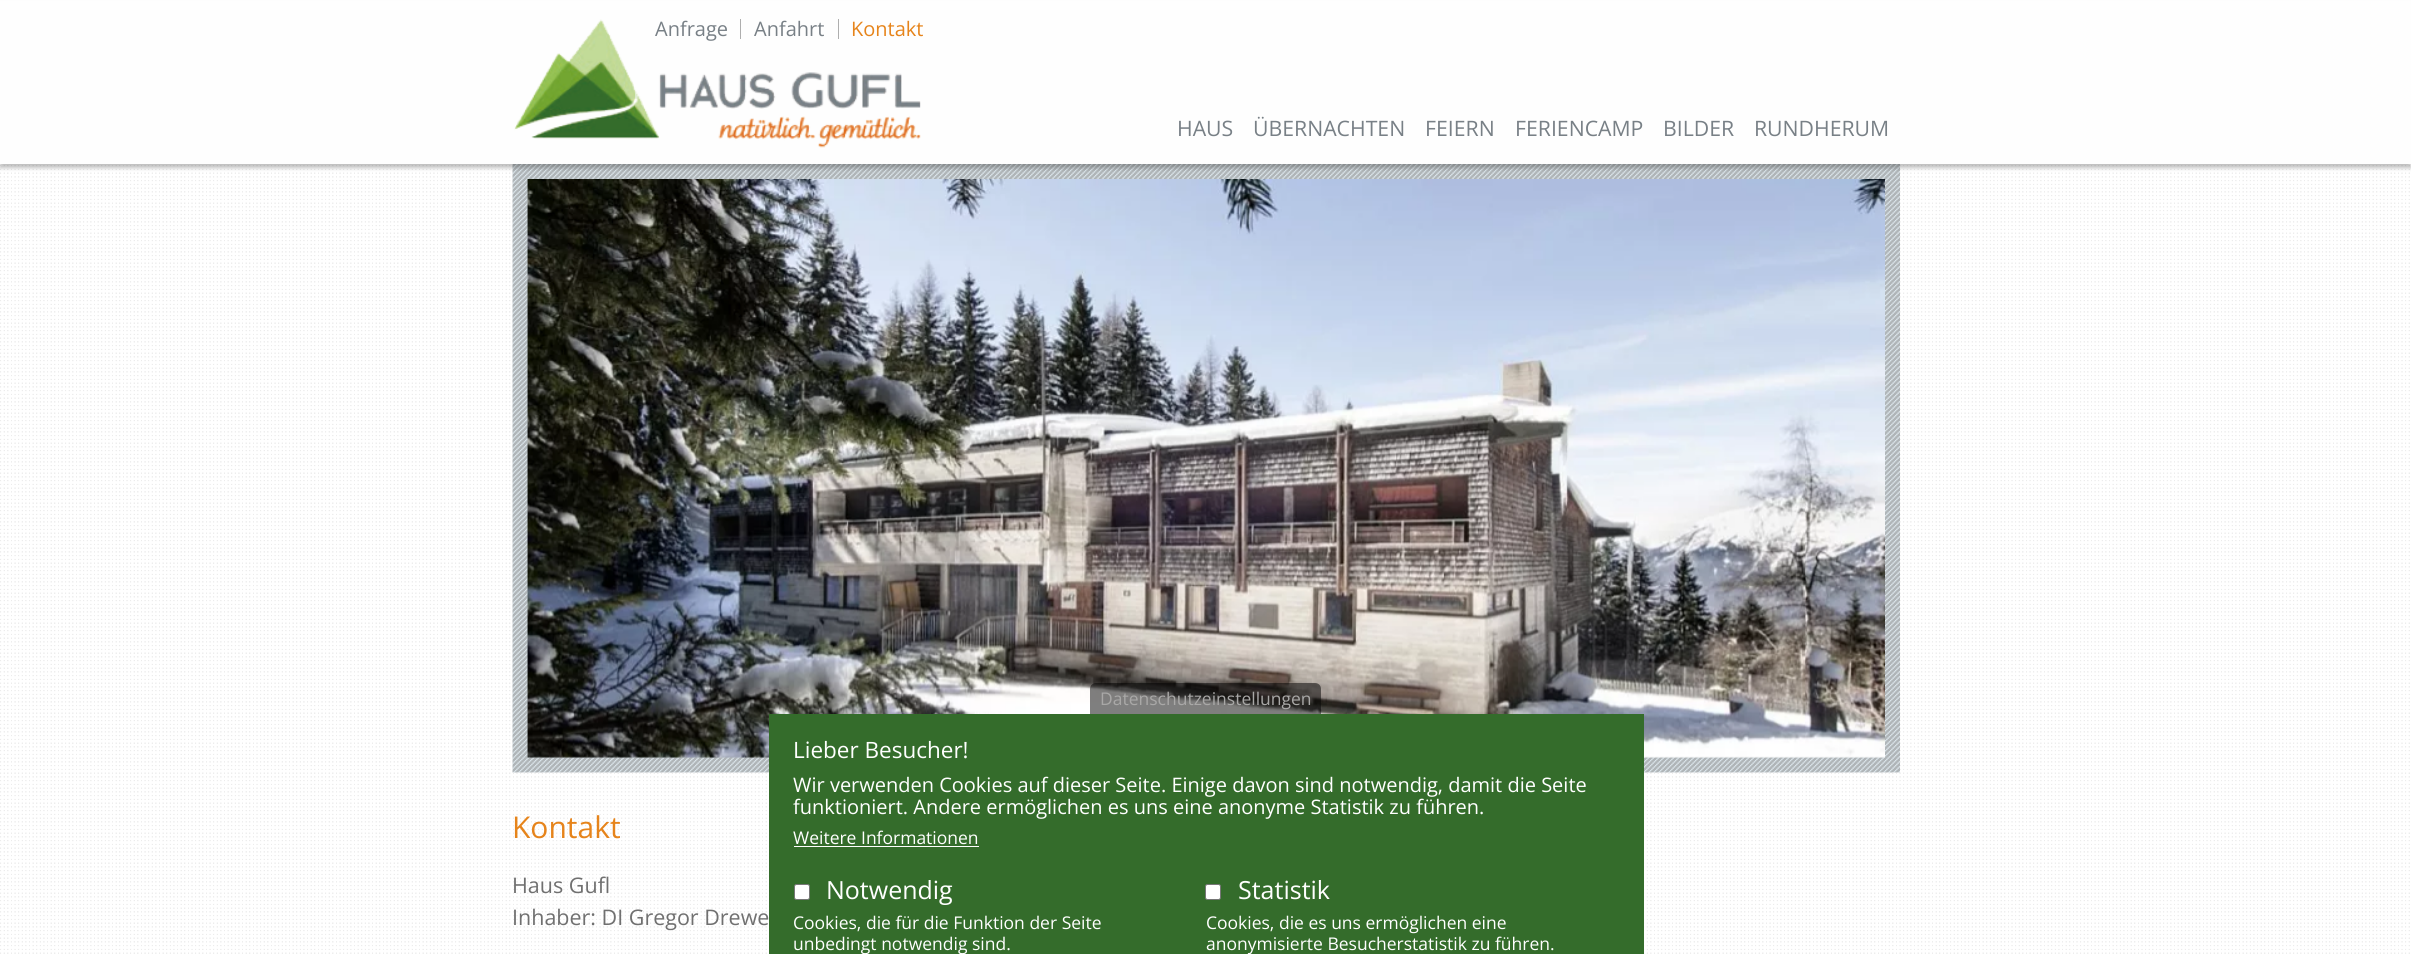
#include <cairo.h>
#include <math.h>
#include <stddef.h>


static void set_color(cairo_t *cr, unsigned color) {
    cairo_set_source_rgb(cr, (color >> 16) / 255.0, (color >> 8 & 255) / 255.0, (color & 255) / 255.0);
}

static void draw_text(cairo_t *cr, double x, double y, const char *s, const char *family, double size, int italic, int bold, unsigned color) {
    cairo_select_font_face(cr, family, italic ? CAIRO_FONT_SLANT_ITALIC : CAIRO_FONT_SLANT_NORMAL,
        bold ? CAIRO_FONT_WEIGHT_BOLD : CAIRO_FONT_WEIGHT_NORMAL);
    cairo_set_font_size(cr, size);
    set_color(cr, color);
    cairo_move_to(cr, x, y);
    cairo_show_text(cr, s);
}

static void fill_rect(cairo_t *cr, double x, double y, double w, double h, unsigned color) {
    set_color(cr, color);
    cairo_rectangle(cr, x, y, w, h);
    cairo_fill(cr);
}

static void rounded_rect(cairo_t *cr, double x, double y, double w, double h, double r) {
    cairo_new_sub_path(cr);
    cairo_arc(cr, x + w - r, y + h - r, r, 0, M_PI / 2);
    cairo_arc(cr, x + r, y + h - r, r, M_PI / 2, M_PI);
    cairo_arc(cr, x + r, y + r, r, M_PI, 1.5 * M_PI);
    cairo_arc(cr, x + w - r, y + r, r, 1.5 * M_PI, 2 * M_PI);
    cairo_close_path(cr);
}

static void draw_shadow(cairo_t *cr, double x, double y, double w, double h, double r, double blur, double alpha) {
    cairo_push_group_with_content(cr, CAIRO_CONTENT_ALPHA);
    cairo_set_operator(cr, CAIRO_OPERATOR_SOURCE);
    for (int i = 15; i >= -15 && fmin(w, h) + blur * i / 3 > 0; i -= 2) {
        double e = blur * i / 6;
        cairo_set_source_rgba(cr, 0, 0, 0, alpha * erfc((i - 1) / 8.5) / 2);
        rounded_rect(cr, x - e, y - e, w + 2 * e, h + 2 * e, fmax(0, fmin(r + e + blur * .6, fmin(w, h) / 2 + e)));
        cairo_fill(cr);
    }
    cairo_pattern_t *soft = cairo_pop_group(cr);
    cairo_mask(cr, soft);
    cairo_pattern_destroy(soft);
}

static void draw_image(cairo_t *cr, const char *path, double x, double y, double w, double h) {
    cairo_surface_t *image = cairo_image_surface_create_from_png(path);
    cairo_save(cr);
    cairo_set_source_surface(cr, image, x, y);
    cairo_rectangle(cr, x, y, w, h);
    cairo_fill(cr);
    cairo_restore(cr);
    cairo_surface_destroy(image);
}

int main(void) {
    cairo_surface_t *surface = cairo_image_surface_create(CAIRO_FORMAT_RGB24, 2411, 954);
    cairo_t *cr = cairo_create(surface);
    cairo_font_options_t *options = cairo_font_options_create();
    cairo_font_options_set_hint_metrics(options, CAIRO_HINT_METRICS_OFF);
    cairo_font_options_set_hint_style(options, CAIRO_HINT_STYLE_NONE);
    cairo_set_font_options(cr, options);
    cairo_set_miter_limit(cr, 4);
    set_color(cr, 0xFFFFFF);
    cairo_paint(cr);
    draw_image(cr, "assets/img1.png", 0, 164, 2410, 790);
    fill_rect(cr, 513, 772, 1387, 1, 0xFFFFFF);
    draw_image(cr, "assets/img3.png", 512, 164, 1388, 609);
    set_color(cr, 0x2D2D2D);
    draw_shadow(cr, 0, 4, 2411, 164, 0, 2, 0.3);
    fill_rect(cr, 0, 1, 2411, 163, 0xFEFEFE);
    draw_image(cr, "assets/img2.png", 514, 19, 407, 129);
    draw_text(cr, 655, 36, "Anfrage", "Open Sans", 20, 0, 0, 0x788086);
    fill_rect(cr, 740, 19, 1, 20, 0xAEAEAE);
    draw_text(cr, 754, 36, "Anfahrt", "Open Sans", 20, 0, 0, 0x788086);
    fill_rect(cr, 838, 19, 1, 20, 0xAEAEAE);
    draw_text(cr, 851, 36, "Kontakt", "Open Sans", 20, 0, 0, 0xE6841B);
    draw_text(cr, 1177, 136, "HAUS", "Open Sans", 21.25, 0, 0, 0x788086);
    draw_text(cr, 1253, 136, "ÜBERNACHTEN", "Open Sans", 21.25, 0, 0, 0x788086);
    draw_text(cr, 1425, 136, "FEIERN", "Open Sans", 21.25, 0, 0, 0x788086);
    draw_text(cr, 1515, 136, "FERIENCAMP", "Open Sans", 21.25, 0, 0, 0x788086);
    draw_text(cr, 1663, 136, "BILDER", "Open Sans", 21.25, 0, 0, 0x788086);
    draw_text(cr, 1754, 136, "RUNDHERUM", "Open Sans", 21.25, 0, 0, 0x788086);
    draw_image(cr, "assets/img4.png", 527, 179, 1358, 579);
    draw_text(cr, 512, 838, "Kontakt", "Open Sans", 30, 0, 0, 0xE6841B);
    draw_text(cr, 512, 893, "Haus Gufl", "Open Sans", 21.5, 0, 0, 0x707070);
    draw_text(cr, 512, 925, "Inhaber: DI Gregor Drewe", "Open Sans", 21.5, 0, 0, 0x707070);
    fill_rect(cr, 769, 714, 875, 240, 0x346C2B);
    cairo_set_source_rgba(cr, 0, 0, 0, 0.5);
    cairo_new_path(cr);
    cairo_move_to(cr, 1096, 683);
    cairo_line_to(cr, 1315, 683);
    cairo_curve_to(cr, 1318.5, 683, 1321, 685.5, 1321, 689);
    cairo_line_to(cr, 1321, 714);
    cairo_line_to(cr, 1090, 714);
    cairo_line_to(cr, 1090, 689);
    cairo_curve_to(cr, 1090, 685.5, 1092.5, 683, 1096, 683);
    cairo_close_path(cr);
    cairo_fill(cr);
    draw_text(cr, 1100, 705, "Datenschutzeinstellungen", "Open Sans", 17.5, 0, 0, 0xA9A8A7);
    draw_text(cr, 793, 758, "Lieber Besucher!", "Open Sans", 22.5, 0, 0, 0xFFFFFF);
    draw_text(cr, 793, 792, "Wir verwenden Cookies auf dieser Seite. Einige davon sind notwendig, damit die Seite", "Open Sans", 20, 0, 0, 0xFFFFFF);
    draw_text(cr, 793, 814, "funktioniert. Andere ermöglichen es uns eine anonyme Statistik zu führen.", "Open Sans", 20, 0, 0, 0xFFFFFF);
    draw_text(cr, 793, 844, "Weitere Informationen", "Open Sans", 17.5, 0, 0, 0xFFFFFF);
    fill_rect(cr, 794, 846, 185, 1, 0xFFFFFF);
    rounded_rect(cr, 794.5, 884.5, 15, 15, 2);
    cairo_fill_preserve(cr);
    set_color(cr, 0x767676);
    cairo_set_line_width(cr, 1);
    cairo_stroke(cr);
    draw_text(cr, 826, 899, "Notwendig", "Open Sans", 25, 0, 0, 0xFFFFFF);
    draw_text(cr, 793, 929, "Cookies, die für die Funktion der Seite", "Open Sans", 17.5, 0, 0, 0xFFFFFF);
    draw_text(cr, 793, 950, "unbedingt notwendig sind.", "Open Sans", 17.5, 0, 0, 0xFFFFFF);
    rounded_rect(cr, 1205.5, 884.5, 15, 15, 2);
    cairo_fill_preserve(cr);
    set_color(cr, 0x767676);
    cairo_stroke(cr);
    draw_text(cr, 1238, 899, "Statistik", "Open Sans", 25, 0, 0, 0xFFFFFF);
    draw_text(cr, 1206, 929, "Cookies, die es uns ermöglichen eine", "Open Sans", 17.5, 0, 0, 0xFFFFFF);
    draw_text(cr, 1206, 950, "anonymisierte Besucherstatistik zu führen.", "Open Sans", 17.5, 0, 0, 0xFFFFFF);
    cairo_surface_write_to_png(surface, "output.png");
    cairo_font_options_destroy(options);
    cairo_destroy(cr);
    cairo_surface_destroy(surface);
    return 0;
}
